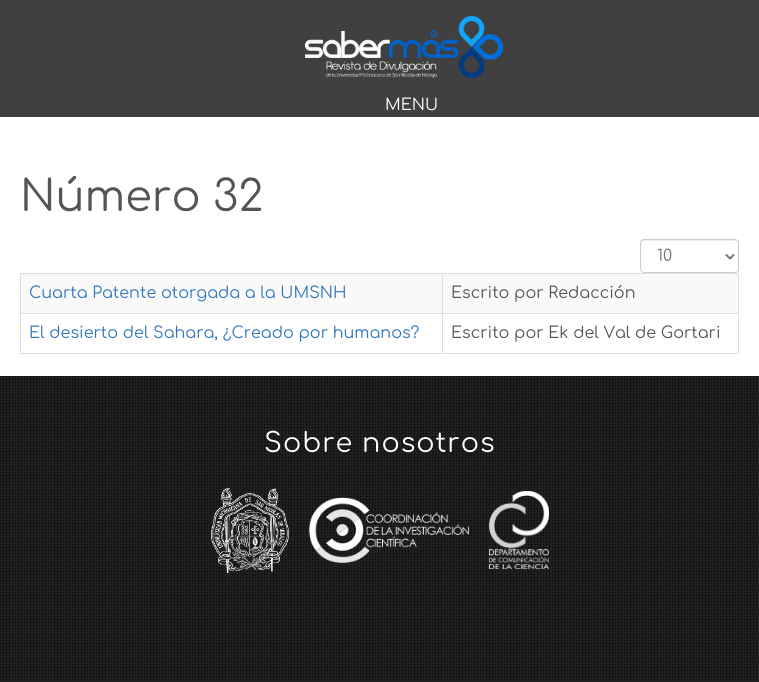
#include <cairo.h>
#include <math.h>
#include <stddef.h>


static void set_color(cairo_t *cr, unsigned color) {
    cairo_set_source_rgb(cr, (color >> 16) / 255.0, (color >> 8 & 255) / 255.0, (color & 255) / 255.0);
}

static void draw_text(cairo_t *cr, double x, double y, const char *s, const char *family, double size, int italic, int bold, unsigned color) {
    cairo_select_font_face(cr, family, italic ? CAIRO_FONT_SLANT_ITALIC : CAIRO_FONT_SLANT_NORMAL,
        bold ? CAIRO_FONT_WEIGHT_BOLD : CAIRO_FONT_WEIGHT_NORMAL);
    cairo_set_font_size(cr, size);
    set_color(cr, color);
    cairo_move_to(cr, x, y);
    cairo_show_text(cr, s);
}

static void draw_spaced(cairo_t *cr, double x, double y, const char *s, double letter, double word) {
    cairo_move_to(cr, x, y);
    while (*s) {
        char ch[5] = {0};
        int n = 0;
        do ch[n++] = *s++; while ((*s & 0xC0) == 0x80);
        cairo_show_text(cr, ch);
        cairo_rel_move_to(cr, letter + word * (*ch == ' '), 0);
    }
}

static void fill_rect(cairo_t *cr, double x, double y, double w, double h, unsigned color) {
    set_color(cr, color);
    cairo_rectangle(cr, x, y, w, h);
    cairo_fill(cr);
}

static void rounded_rect(cairo_t *cr, double x, double y, double w, double h, double r) {
    cairo_new_sub_path(cr);
    cairo_arc(cr, x + w - r, y + h - r, r, 0, M_PI / 2);
    cairo_arc(cr, x + r, y + h - r, r, M_PI / 2, M_PI);
    cairo_arc(cr, x + r, y + r, r, M_PI, 1.5 * M_PI);
    cairo_arc(cr, x + w - r, y + r, r, 1.5 * M_PI, 2 * M_PI);
    cairo_close_path(cr);
}

static void draw_image(cairo_t *cr, const char *path, double x, double y, double w, double h) {
    cairo_surface_t *image = cairo_image_surface_create_from_png(path);
    cairo_save(cr);
    cairo_set_source_surface(cr, image, x, y);
    cairo_rectangle(cr, x, y, w, h);
    cairo_fill(cr);
    cairo_restore(cr);
    cairo_surface_destroy(image);
}

int main(void) {
    cairo_surface_t *surface = cairo_image_surface_create(CAIRO_FORMAT_RGB24, 759, 682);
    cairo_t *cr = cairo_create(surface);
    cairo_font_options_t *options = cairo_font_options_create();
    cairo_font_options_set_hint_metrics(options, CAIRO_HINT_METRICS_OFF);
    cairo_font_options_set_hint_style(options, CAIRO_HINT_STYLE_NONE);
    cairo_set_font_options(cr, options);
    cairo_set_miter_limit(cr, 4);
    set_color(cr, 0xFFFFFF);
    cairo_paint(cr);
    fill_rect(cr, 0, 0, 759, 117, 0x404040);
    draw_image(cr, "assets/img1.png", 305, 16, 198, 62);
    draw_text(cr, 385, 110, "MENU", "Comfortaa", 16, 0, 0, 0xFFFFFF);
    draw_text(cr, 20, 211, "Número 32", "Comfortaa", 43, 0, 0, 0x555555);
    set_color(cr, 0xECECEC);
    cairo_new_path(cr);
    cairo_move_to(cr, 644, 241);
    cairo_line_to(cr, 735, 241);
    cairo_curve_to(cr, 737, 241, 738, 242, 738, 244);
    cairo_curve_to(cr, 738, 236, 723, 240, 720, 240);
    cairo_line_to(cr, 659, 240);
    cairo_curve_to(cr, 656, 240, 641, 236, 641, 244);
    cairo_curve_to(cr, 641, 242, 642, 241, 644, 241);
    cairo_close_path(cr);
    cairo_fill(cr);
    rounded_rect(cr, 640.5, 239.5, 98, 33, 3.5);
    set_color(cr, 0xCCCCCC);
    cairo_set_line_width(cr, 1);
    cairo_stroke(cr);
    cairo_new_path(cr);
    cairo_move_to(cr, 726, 254.5);
    cairo_line_to(cr, 730, 258.5);
    cairo_line_to(cr, 734, 254.5);
    set_color(cr, 0x777777);
    cairo_set_line_width(cr, 2);
    cairo_stroke(cr);
    draw_text(cr, 657, 261, "10", "Comfortaa", 16, 0, 0, 0x777777);
    fill_rect(cr, 20, 273, 719, 1, 0xDDDDDD);
    fill_rect(cr, 738, 273, 1, 81, 0xDDDDDD);
    fill_rect(cr, 20, 353, 719, 1, 0xDDDDDD);
    fill_rect(cr, 20, 273, 1, 81, 0xDDDDDD);
    fill_rect(cr, 21, 274, 421, 39, 0xF9F9F9);
    draw_text(cr, 29, 298, "Cuarta Patente otorgada a la UMSNH", "Comfortaa", 16, 0, 0, 0x3177BD);
    fill_rect(cr, 443, 274, 295, 39, 0xF9F9F9);
    fill_rect(cr, 442, 313, 297, 1, 0xDDDDDD);
    fill_rect(cr, 442, 313, 1, 41, 0xDDDDDD);
    fill_rect(cr, 20, 313, 423, 1, 0xDDDDDD);
    fill_rect(cr, 442, 273, 1, 41, 0xDDDDDD);
    draw_text(cr, 451, 298, "Escrito por Redacción", "Comfortaa", 16, 0, 0, 0x555555);
    draw_text(cr, 29, 338, "El desierto del Sahara, ¿Creado por humanos?", "Comfortaa", 16, 0, 0, 0x3177BD);
    draw_text(cr, 451, 338, "Escrito por Ek del Val de Gortari", "Comfortaa", 16, 0, 0, 0x555555);
    fill_rect(cr, 0, 376, 759, 306, 0x1F1F1F);
    draw_image(cr, "assets/img2.png", 0, 376, 757, 304);
    cairo_set_font_size(cr, 27);
    set_color(cr, 0xFFFFFF);
    draw_spaced(cr, 264, 452, "Sobre nosotros", 1, 0);
    draw_image(cr, "assets/img3.png", 211, 488, 78, 85);
    draw_image(cr, "assets/img4.png", 309, 497, 160, 66);
    draw_image(cr, "assets/img5.png", 489, 491, 60, 78);
    cairo_surface_write_to_png(surface, "output.png");
    cairo_font_options_destroy(options);
    cairo_destroy(cr);
    cairo_surface_destroy(surface);
    return 0;
}
